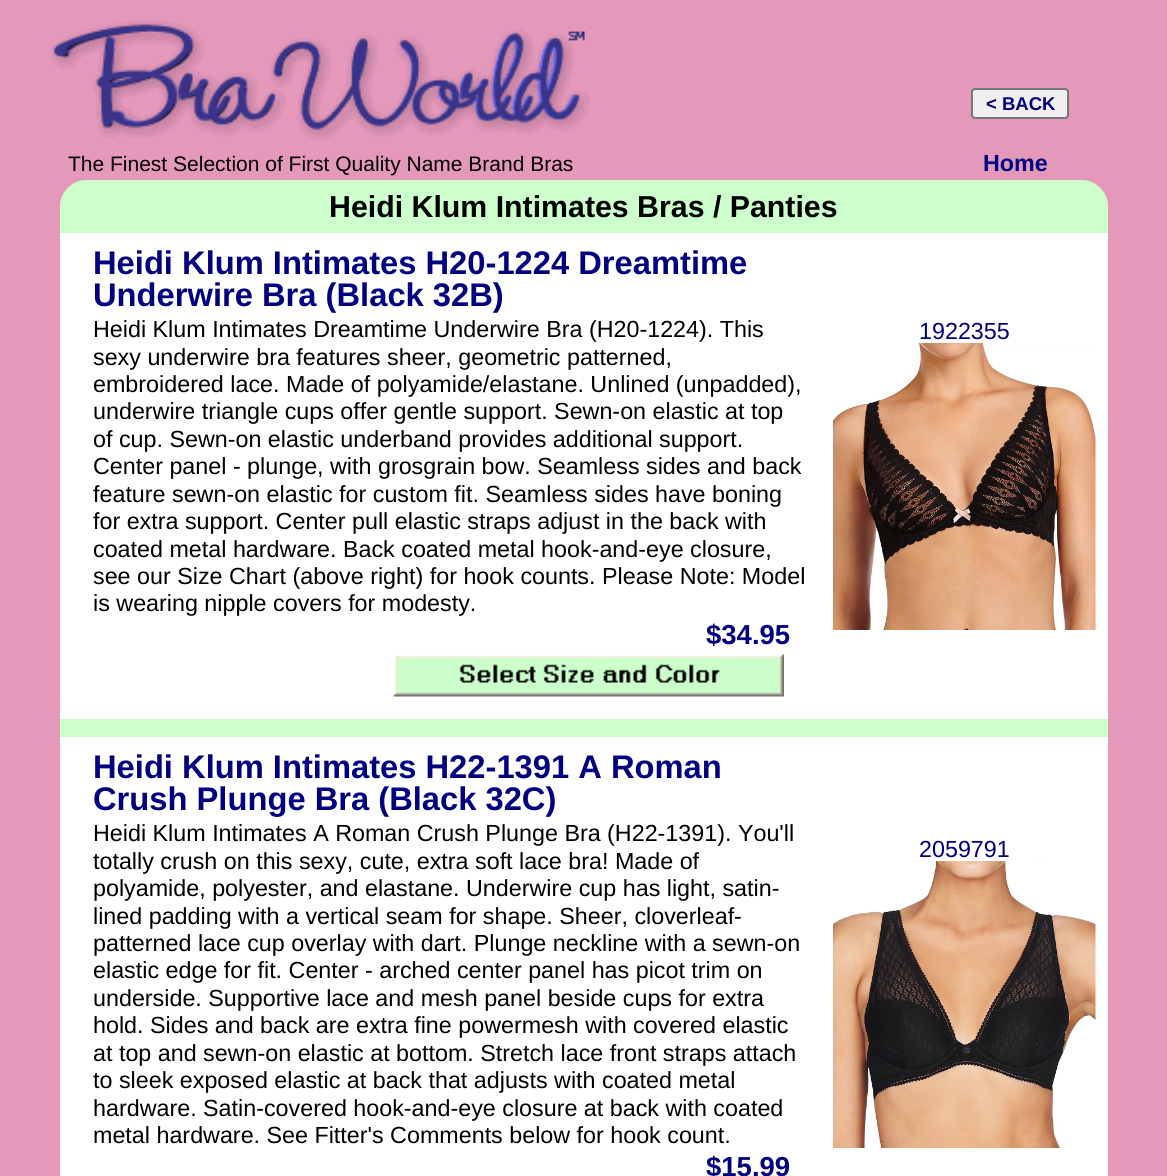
#include <cairo.h>
#include <math.h>
#include <stddef.h>


static void set_color(cairo_t *cr, unsigned color) {
    cairo_set_source_rgb(cr, (color >> 16) / 255.0, (color >> 8 & 255) / 255.0, (color & 255) / 255.0);
}

static void draw_text(cairo_t *cr, double x, double y, const char *s, const char *family, double size, int italic, int bold, unsigned color) {
    cairo_select_font_face(cr, family, italic ? CAIRO_FONT_SLANT_ITALIC : CAIRO_FONT_SLANT_NORMAL,
        bold ? CAIRO_FONT_WEIGHT_BOLD : CAIRO_FONT_WEIGHT_NORMAL);
    cairo_set_font_size(cr, size);
    set_color(cr, color);
    cairo_move_to(cr, x, y);
    cairo_show_text(cr, s);
}

static void fill_rect(cairo_t *cr, double x, double y, double w, double h, unsigned color) {
    set_color(cr, color);
    cairo_rectangle(cr, x, y, w, h);
    cairo_fill(cr);
}

static void rounded_rect(cairo_t *cr, double x, double y, double w, double h, double r) {
    cairo_new_sub_path(cr);
    cairo_arc(cr, x + w - r, y + h - r, r, 0, M_PI / 2);
    cairo_arc(cr, x + r, y + h - r, r, M_PI / 2, M_PI);
    cairo_arc(cr, x + r, y + r, r, M_PI, 1.5 * M_PI);
    cairo_arc(cr, x + w - r, y + r, r, 1.5 * M_PI, 2 * M_PI);
    cairo_close_path(cr);
}

static void draw_image(cairo_t *cr, const char *path, double x, double y, double w, double h) {
    cairo_surface_t *image = cairo_image_surface_create_from_png(path);
    cairo_save(cr);
    cairo_set_source_surface(cr, image, x, y);
    cairo_rectangle(cr, x, y, w, h);
    cairo_fill(cr);
    cairo_restore(cr);
    cairo_surface_destroy(image);
}

int main(void) {
    cairo_surface_t *surface = cairo_image_surface_create(CAIRO_FORMAT_RGB24, 1167, 1176);
    cairo_t *cr = cairo_create(surface);
    cairo_font_options_t *options = cairo_font_options_create();
    cairo_font_options_set_hint_metrics(options, CAIRO_HINT_METRICS_OFF);
    cairo_font_options_set_hint_style(options, CAIRO_HINT_STYLE_NONE);
    cairo_set_font_options(cr, options);
    cairo_set_miter_limit(cr, 4);
    set_color(cr, 0xE498BA);
    cairo_paint(cr);
    draw_image(cr, "assets/img1.png", 51, 21, 539, 119);
    draw_text(cr, 68, 171, "The Finest Selection of First Quality Name Brand Bras", "Liberation Sans", 21, 0, 0, 0x000000);
    set_color(cr, 0xEFEFEF);
    rounded_rect(cr, 972, 89, 96, 29, 3);
    cairo_fill_preserve(cr);
    set_color(cr, 0x767676);
    cairo_stroke(cr);
    draw_text(cr, 986, 110, "< BACK", "Liberation Sans", 18.5, 0, 1, 0x000080);
    draw_text(cr, 983, 171, "Home", "Liberation Sans", 23.3, 0, 1, 0x000080);
    set_color(cr, 0xCCFFCC);
    cairo_new_path(cr);
    cairo_move_to(cr, 86.5, 180);
    cairo_line_to(cr, 1081.5, 180);
    cairo_curve_to(cr, 1096, 180, 1108, 192, 1108, 206.5);
    cairo_line_to(cr, 1108, 233);
    cairo_line_to(cr, 60, 233);
    cairo_line_to(cr, 60, 206.5);
    cairo_curve_to(cr, 60, 192, 72, 180, 86.5, 180);
    cairo_close_path(cr);
    cairo_fill(cr);
    draw_text(cr, 329, 217, "Heidi Klum Intimates Bras / Panties", "Liberation Sans", 30.3, 0, 1, 0x000000);
    fill_rect(cr, 60, 233, 1048, 486, 0xFFFFFF);
    draw_text(cr, 93, 274, "Heidi Klum Intimates H20-1224 Dreamtime", "Liberation Sans", 32.7, 0, 1, 0x000080);
    draw_text(cr, 93, 306, "Underwire Bra (Black 32B)", "Liberation Sans", 32.7, 0, 1, 0x000080);
    draw_text(cr, 93, 337, "Heidi Klum Intimates Dreamtime Underwire Bra (H20-1224). This", "Liberation Sans", 23.3, 0, 0, 0x000000);
    draw_text(cr, 93, 365, "sexy underwire bra features sheer, geometric patterned,", "Liberation Sans", 23.3, 0, 0, 0x000000);
    draw_text(cr, 93, 392, "embroidered lace. Made of polyamide/elastane. Unlined (unpadded),", "Liberation Sans", 23.3, 0, 0, 0x000000);
    draw_text(cr, 93, 419, "underwire triangle cups offer gentle support. Sewn-on elastic at top", "Liberation Sans", 23.3, 0, 0, 0x000000);
    draw_text(cr, 93, 447, "of cup. Sewn-on elastic underband provides additional support.", "Liberation Sans", 23.3, 0, 0, 0x000000);
    draw_text(cr, 93, 474, "Center panel - plunge, with grosgrain bow. Seamless sides and back", "Liberation Sans", 23.3, 0, 0, 0x000000);
    draw_text(cr, 93, 502, "feature sewn-on elastic for custom fit. Seamless sides have boning", "Liberation Sans", 23.3, 0, 0, 0x000000);
    draw_text(cr, 93, 529, "for extra support. Center pull elastic straps adjust in the back with", "Liberation Sans", 23.3, 0, 0, 0x000000);
    draw_text(cr, 93, 557, "coated metal hardware. Back coated metal hook-and-eye closure,", "Liberation Sans", 23.3, 0, 0, 0x000000);
    draw_text(cr, 93, 584, "see our Size Chart (above right) for hook counts. Please Note: Model", "Liberation Sans", 23.3, 0, 0, 0x000000);
    draw_text(cr, 93, 611, "is wearing nipple covers for modesty.", "Liberation Sans", 23.3, 0, 0, 0x000000);
    draw_text(cr, 706, 644, "$34.95", "Liberation Sans", 27.5, 0, 1, 0x000080);
    draw_image(cr, "assets/img2.png", 393, 654, 391, 43);
    draw_text(cr, 919, 339, "1922355", "Liberation Sans", 23.3, 0, 0, 0x000080);
    draw_image(cr, "assets/img3.png", 833, 343, 263, 287);
    fill_rect(cr, 60, 719, 1048, 18, 0xCCFFCC);
    fill_rect(cr, 60, 737, 1048, 439, 0xFFFFFF);
    draw_text(cr, 93, 778, "Heidi Klum Intimates H22-1391 A Roman", "Liberation Sans", 32.7, 0, 1, 0x000080);
    draw_text(cr, 93, 810, "Crush Plunge Bra (Black 32C)", "Liberation Sans", 32.7, 0, 1, 0x000080);
    draw_text(cr, 93, 841, "Heidi Klum Intimates A Roman Crush Plunge Bra (H22-1391). You'll", "Liberation Sans", 23.3, 0, 0, 0x000000);
    draw_text(cr, 93, 869, "totally crush on this sexy, cute, extra soft lace bra! Made of", "Liberation Sans", 23.3, 0, 0, 0x000000);
    draw_text(cr, 93, 896, "polyamide, polyester, and elastane. Underwire cup has light, satin-", "Liberation Sans", 23.3, 0, 0, 0x000000);
    draw_text(cr, 93, 924, "lined padding with a vertical seam for shape. Sheer, cloverleaf-", "Liberation Sans", 23.3, 0, 0, 0x000000);
    draw_text(cr, 93, 951, "patterned lace cup overlay with dart. Plunge neckline with a sewn-on", "Liberation Sans", 23.3, 0, 0, 0x000000);
    draw_text(cr, 93, 978, "elastic edge for fit. Center - arched center panel has picot trim on", "Liberation Sans", 23.3, 0, 0, 0x000000);
    draw_text(cr, 93, 1006, "underside. Supportive lace and mesh panel beside cups for extra", "Liberation Sans", 23.3, 0, 0, 0x000000);
    draw_text(cr, 93, 1033, "hold. Sides and back are extra fine powermesh with covered elastic", "Liberation Sans", 23.3, 0, 0, 0x000000);
    draw_text(cr, 93, 1061, "at top and sewn-on elastic at bottom. Stretch lace front straps attach", "Liberation Sans", 23.3, 0, 0, 0x000000);
    draw_text(cr, 93, 1088, "to sleek exposed elastic at back that adjusts with coated metal", "Liberation Sans", 23.3, 0, 0, 0x000000);
    draw_text(cr, 93, 1116, "hardware. Satin-covered hook-and-eye closure at back with coated", "Liberation Sans", 23.3, 0, 0, 0x000000);
    draw_text(cr, 93, 1143, "metal hardware. See Fitter's Comments below for hook count.", "Liberation Sans", 23.3, 0, 0, 0x000000);
    draw_text(cr, 706, 1176, "$15.99", "Liberation Sans", 27.5, 0, 1, 0x000080);
    draw_text(cr, 919, 857, "2059791", "Liberation Sans", 23.3, 0, 0, 0x000080);
    draw_image(cr, "assets/img4.png", 833, 861, 263, 287);
    cairo_surface_write_to_png(surface, "output.png");
    cairo_font_options_destroy(options);
    cairo_destroy(cr);
    cairo_surface_destroy(surface);
    return 0;
}
